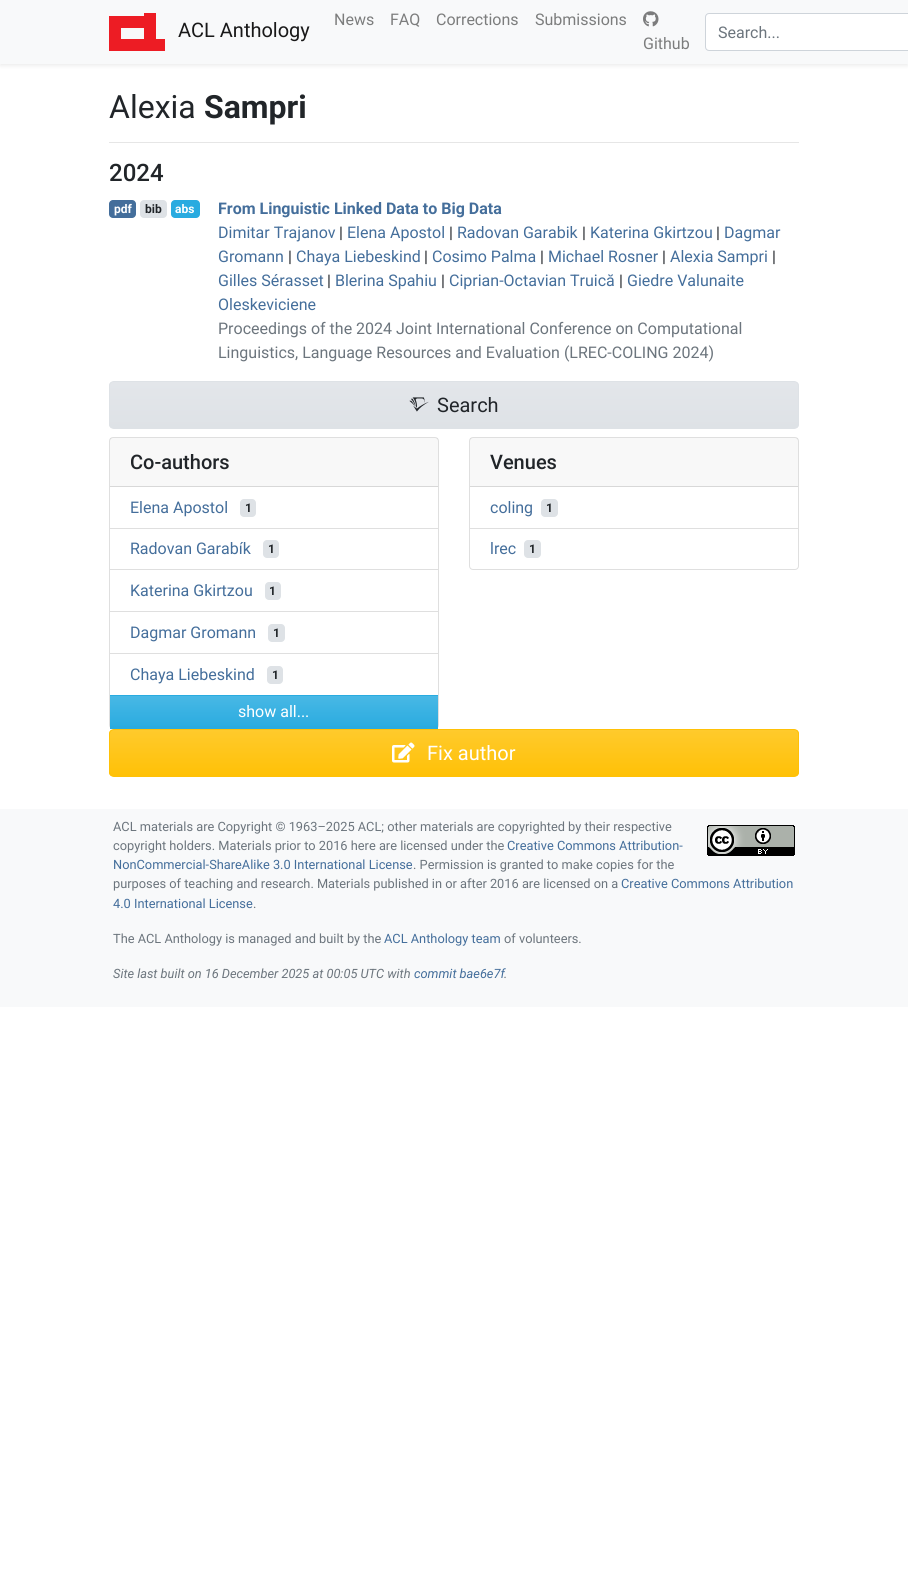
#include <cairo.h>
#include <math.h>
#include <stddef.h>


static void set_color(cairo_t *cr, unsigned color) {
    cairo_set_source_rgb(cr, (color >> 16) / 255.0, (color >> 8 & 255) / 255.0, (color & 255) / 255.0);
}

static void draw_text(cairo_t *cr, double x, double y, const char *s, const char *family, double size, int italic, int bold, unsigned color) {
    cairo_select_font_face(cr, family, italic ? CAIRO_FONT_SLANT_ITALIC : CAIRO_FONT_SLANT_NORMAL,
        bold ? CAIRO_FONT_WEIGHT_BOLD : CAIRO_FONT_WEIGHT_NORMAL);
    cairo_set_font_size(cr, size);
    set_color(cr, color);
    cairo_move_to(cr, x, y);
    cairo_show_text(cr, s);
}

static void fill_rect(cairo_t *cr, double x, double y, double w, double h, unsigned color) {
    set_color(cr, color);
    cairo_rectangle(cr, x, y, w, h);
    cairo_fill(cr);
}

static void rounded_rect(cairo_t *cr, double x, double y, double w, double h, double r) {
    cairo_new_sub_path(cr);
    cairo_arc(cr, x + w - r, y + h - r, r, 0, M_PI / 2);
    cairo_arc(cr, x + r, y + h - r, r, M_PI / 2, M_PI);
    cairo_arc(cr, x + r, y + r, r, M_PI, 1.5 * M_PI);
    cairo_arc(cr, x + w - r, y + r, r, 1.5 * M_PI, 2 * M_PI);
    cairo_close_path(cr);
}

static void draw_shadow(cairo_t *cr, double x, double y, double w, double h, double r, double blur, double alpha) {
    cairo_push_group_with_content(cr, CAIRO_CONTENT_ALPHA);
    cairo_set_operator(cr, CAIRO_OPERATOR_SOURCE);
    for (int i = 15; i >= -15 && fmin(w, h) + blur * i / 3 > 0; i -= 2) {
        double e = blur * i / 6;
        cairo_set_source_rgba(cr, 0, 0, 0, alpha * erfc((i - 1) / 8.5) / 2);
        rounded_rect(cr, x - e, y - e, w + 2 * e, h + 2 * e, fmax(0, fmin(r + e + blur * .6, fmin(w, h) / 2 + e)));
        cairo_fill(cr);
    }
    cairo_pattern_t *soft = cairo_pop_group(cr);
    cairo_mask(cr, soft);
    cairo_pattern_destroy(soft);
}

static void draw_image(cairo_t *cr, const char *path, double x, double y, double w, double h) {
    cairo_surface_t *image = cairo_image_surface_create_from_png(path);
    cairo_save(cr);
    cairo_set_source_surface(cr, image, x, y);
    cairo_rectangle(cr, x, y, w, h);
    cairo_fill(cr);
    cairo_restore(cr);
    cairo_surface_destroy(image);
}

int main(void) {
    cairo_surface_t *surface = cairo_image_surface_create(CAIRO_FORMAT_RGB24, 908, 1571);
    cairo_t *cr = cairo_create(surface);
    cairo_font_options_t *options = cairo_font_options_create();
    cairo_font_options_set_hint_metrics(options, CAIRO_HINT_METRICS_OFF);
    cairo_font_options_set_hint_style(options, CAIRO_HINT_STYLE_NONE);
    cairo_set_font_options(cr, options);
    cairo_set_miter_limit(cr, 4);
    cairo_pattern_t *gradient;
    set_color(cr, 0xFFFFFF);
    cairo_paint(cr);
    set_color(cr, 0x000000);
    draw_shadow(cr, 0, 2, 908, 64, 0, 2, 0.07);
    fill_rect(cr, 0, 0, 908, 64, 0xF8F9FA);
    set_color(cr, 0xED1C24);
    cairo_set_fill_rule(cr, CAIRO_FILL_RULE_EVEN_ODD);
    cairo_new_path(cr);
    cairo_move_to(cr, 144, 13);
    cairo_line_to(cr, 144, 16);
    cairo_line_to(cr, 109, 16);
    cairo_line_to(cr, 109, 51);
    cairo_line_to(cr, 165, 51);
    cairo_line_to(cr, 165, 39);
    cairo_line_to(cr, 156, 39);
    cairo_line_to(cr, 156, 13);
    cairo_close_path(cr);
    cairo_move_to(cr, 121, 28);
    cairo_line_to(cr, 144, 28);
    cairo_line_to(cr, 144, 39);
    cairo_line_to(cr, 121, 39);
    cairo_close_path(cr);
    cairo_fill(cr);
    draw_text(cr, 178, 37, "ACL Anthology", "Roboto", 20, 0, 0, 0x191919);
    draw_text(cr, 334, 25, "News", "Roboto", 16, 0, 0, 0x7C7D7D);
    draw_text(cr, 390, 25, "FAQ", "Roboto", 16, 0, 0, 0x7C7D7D);
    draw_text(cr, 436, 25, "Corrections", "Roboto", 16, 0, 0, 0x7C7D7D);
    draw_text(cr, 535, 25, "Submissions", "Roboto", 16, 0, 0, 0x7C7D7D);
    draw_image(cr, "assets/img1.png", 643, 11, 16, 16);
    draw_text(cr, 643, 49, "Github", "Roboto", 16, 0, 0, 0x7C7D7D);
    set_color(cr, 0xFFFFFF);
    rounded_rect(cr, 706, 14, 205, 36, 3);
    cairo_fill(cr);
    rounded_rect(cr, 705.5, 13.5, 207, 37, 3.5);
    set_color(cr, 0xCED4DA);
    cairo_set_line_width(cr, 1);
    cairo_stroke(cr);
    draw_text(cr, 718, 38, "Search...", "Roboto", 16, 0, 0, 0x6C757D);
    draw_text(cr, 109, 118, "Alexia", "Roboto", 32, 0, 0, 0x212529);
    draw_text(cr, 204, 118, "Sampri", "Roboto", 32, 0, 1, 0x212529);
    fill_rect(cr, 109, 142, 690, 1, 0xE6E6E6);
    draw_text(cr, 109, 181, "2024", "Roboto Medium", 24, 0, 0, 0x212529);
    set_color(cr, 0x446E9B);
    rounded_rect(cr, 109, 200, 27, 18, 4);
    cairo_fill(cr);
    draw_text(cr, 114, 213, "pdf", "Roboto", 12, 0, 1, 0xFFFFFF);
    set_color(cr, 0xDEE2E6);
    rounded_rect(cr, 140, 200, 27, 18, 4);
    cairo_fill(cr);
    draw_text(cr, 145, 213, "bib", "Roboto", 12, 0, 1, 0x212529);
    set_color(cr, 0x29ABE0);
    rounded_rect(cr, 171, 200, 29, 18, 4);
    cairo_fill(cr);
    draw_text(cr, 175, 213, "abs", "Roboto", 12, 0, 1, 0xFFFFFF);
    draw_text(cr, 218, 214, "From Linguistic Linked Data to Big Data", "Roboto", 16, 0, 1, 0x446E9B);
    draw_text(cr, 218, 238, "Dimitar Trajanov", "Roboto", 16, 0, 0, 0x446E9B);
    draw_text(cr, 339, 238, "|", "Roboto", 16, 0, 0, 0x212529);
    draw_text(cr, 347, 238, "Elena Apostol", "Roboto", 16, 0, 0, 0x446E9B);
    draw_text(cr, 449, 238, "|", "Roboto", 16, 0, 0, 0x212529);
    draw_text(cr, 457, 238, "Radovan Garabik", "Roboto", 16, 0, 0, 0x446E9B);
    draw_text(cr, 582, 238, "|", "Roboto", 16, 0, 0, 0x212529);
    draw_text(cr, 590, 238, "Katerina Gkirtzou", "Roboto", 16, 0, 0, 0x446E9B);
    draw_text(cr, 716, 238, "|", "Roboto", 16, 0, 0, 0x212529);
    draw_text(cr, 724, 238, "Dagmar", "Roboto", 16, 0, 0, 0x446E9B);
    draw_text(cr, 218, 262, "Gromann", "Roboto", 16, 0, 0, 0x446E9B);
    draw_text(cr, 288, 262, "|", "Roboto", 16, 0, 0, 0x212529);
    draw_text(cr, 296, 262, "Chaya Liebeskind", "Roboto", 16, 0, 0, 0x446E9B);
    draw_text(cr, 424, 262, "|", "Roboto", 16, 0, 0, 0x212529);
    draw_text(cr, 432, 262, "Cosimo Palma", "Roboto", 16, 0, 0, 0x446E9B);
    draw_text(cr, 540, 262, "|", "Roboto", 16, 0, 0, 0x212529);
    draw_text(cr, 548, 262, "Michael Rosner", "Roboto", 16, 0, 0, 0x446E9B);
    draw_text(cr, 662, 262, "|", "Roboto", 16, 0, 0, 0x212529);
    draw_text(cr, 670, 262, "Alexia Sampri", "Roboto", 16, 0, 0, 0x446E9B);
    draw_text(cr, 772, 262, "|", "Roboto", 16, 0, 0, 0x212529);
    draw_text(cr, 218, 286, "Gilles Sérasset", "Roboto", 16, 0, 0, 0x446E9B);
    draw_text(cr, 327, 286, "|", "Roboto", 16, 0, 0, 0x212529);
    draw_text(cr, 335, 286, "Blerina Spahiu", "Roboto", 16, 0, 0, 0x446E9B);
    draw_text(cr, 441, 286, "|", "Roboto", 16, 0, 0, 0x212529);
    draw_text(cr, 449, 286, "Ciprian-Octavian Truică", "Roboto", 16, 0, 0, 0x446E9B);
    draw_text(cr, 619, 286, "|", "Roboto", 16, 0, 0, 0x212529);
    draw_text(cr, 627, 286, "Giedre Valunaite", "Roboto", 16, 0, 0, 0x446E9B);
    draw_text(cr, 218, 310, "Oleskeviciene", "Roboto", 16, 0, 0, 0x446E9B);
    draw_text(cr, 218, 334, "Proceedings of the 2024 Joint International Conference on Computational", "Roboto", 16, 0, 0, 0x6C757D);
    draw_text(cr, 218, 358, "Linguistics, Language Resources and Evaluation (LREC-COLING 2024)", "Roboto", 16, 0, 0, 0x6C757D);
    cairo_save(cr);
    cairo_set_fill_rule(cr, CAIRO_FILL_RULE_WINDING);
    rounded_rect(cr, 109, 381, 690, 48, 5);
    cairo_clip(cr);
    gradient = cairo_pattern_create_linear(454, 382, 454, 428);
    cairo_pattern_add_color_stop_rgba(gradient, 0, 0.89, 0.902, 0.918, 1);
    cairo_pattern_add_color_stop_rgba(gradient, 1, 0.871, 0.886, 0.902, 1);
    cairo_set_source(cr, gradient);
    cairo_pattern_destroy(gradient);
    cairo_rectangle(cr, 109, 382, 690, 46);
    cairo_fill(cr);
    cairo_restore(cr);
    rounded_rect(cr, 109.5, 381.5, 689, 47, 4.5);
    set_color(cr, 0xDEE2E6);
    cairo_stroke(cr);
    draw_image(cr, "assets/img2.png", 409, 397, 20, 15);
    draw_text(cr, 437, 412, "Search", "Roboto", 20, 0, 0, 0x212529);
    rounded_rect(cr, 109.5, 437.5, 329, 291, 3.5);
    set_color(cr, 0xDFDFDF);
    cairo_stroke(cr);
    cairo_set_source_rgba(cr, 0, 0, 0, 0.03);
    cairo_rectangle(cr, 110, 438, 328, 48);
    cairo_fill(cr);
    fill_rect(cr, 110, 486, 328, 1, 0xD8D8D8);
    draw_text(cr, 130, 469, "Co-authors", "Roboto Medium", 20, 0, 0, 0x212529);
    draw_text(cr, 130, 513, "Elena Apostol", "Roboto", 16, 0, 0, 0x446E9B);
    set_color(cr, 0xDEE2E6);
    rounded_rect(cr, 240, 499, 16, 18, 4);
    cairo_fill(cr);
    draw_text(cr, 245, 512, "1", "Roboto", 12, 0, 1, 0x212529);
    fill_rect(cr, 110, 528, 328, 1, 0xDFDFDF);
    draw_text(cr, 130, 554, "Radovan Garabík", "Roboto", 16, 0, 0, 0x446E9B);
    set_color(cr, 0xDEE2E6);
    rounded_rect(cr, 263, 540, 16, 18, 4);
    cairo_fill(cr);
    draw_text(cr, 268, 553, "1", "Roboto", 12, 0, 1, 0x212529);
    fill_rect(cr, 110, 569, 328, 1, 0xDFDFDF);
    draw_text(cr, 130, 596, "Katerina Gkirtzou", "Roboto", 16, 0, 0, 0x446E9B);
    set_color(cr, 0xDEE2E6);
    rounded_rect(cr, 265, 582, 16, 18, 4);
    cairo_fill(cr);
    draw_text(cr, 269, 595, "1", "Roboto", 12, 0, 1, 0x212529);
    fill_rect(cr, 110, 611, 328, 1, 0xDFDFDF);
    draw_text(cr, 130, 638, "Dagmar Gromann", "Roboto", 16, 0, 0, 0x446E9B);
    set_color(cr, 0xDEE2E6);
    rounded_rect(cr, 268, 624, 17, 18, 4);
    cairo_fill(cr);
    draw_text(cr, 273, 637, "1", "Roboto", 12, 0, 1, 0x212529);
    fill_rect(cr, 110, 653, 328, 1, 0xDFDFDF);
    draw_text(cr, 130, 680, "Chaya Liebeskind", "Roboto", 16, 0, 0, 0x446E9B);
    set_color(cr, 0xDEE2E6);
    rounded_rect(cr, 267, 666, 16, 18, 4);
    cairo_fill(cr);
    draw_text(cr, 272, 679, "1", "Roboto", 12, 0, 1, 0x212529);
    fill_rect(cr, 110, 695, 328, 34, 0x29ABE0);
    gradient = cairo_pattern_create_linear(274, 696, 274, 728);
    cairo_pattern_add_color_stop_rgba(gradient, 0, 0.286, 0.722, 0.898, 1);
    cairo_pattern_add_color_stop_rgba(gradient, 1, 0.161, 0.671, 0.878, 1);
    cairo_set_source(cr, gradient);
    cairo_pattern_destroy(gradient);
    cairo_rectangle(cr, 110, 696, 328, 30);
    cairo_fill(cr);
    draw_text(cr, 238, 717, "show all...", "Roboto", 16, 0, 0, 0xFFFFFF);
    rounded_rect(cr, 469.5, 437.5, 329, 132, 3.5);
    set_color(cr, 0xDFDFDF);
    cairo_stroke(cr);
    cairo_set_source_rgba(cr, 0, 0, 0, 0.03);
    cairo_rectangle(cr, 470, 438, 328, 48);
    cairo_fill(cr);
    fill_rect(cr, 470, 486, 328, 1, 0xD8D8D8);
    draw_text(cr, 490, 469, "Venues", "Roboto Medium", 20, 0, 0, 0x212529);
    draw_text(cr, 490, 513, "coling", "Roboto", 16, 0, 0, 0x446E9B);
    set_color(cr, 0xDEE2E6);
    rounded_rect(cr, 541, 499, 17, 18, 4);
    cairo_fill(cr);
    draw_text(cr, 546, 512, "1", "Roboto", 12, 0, 1, 0x212529);
    fill_rect(cr, 470, 528, 328, 1, 0xDFDFDF);
    draw_text(cr, 490, 554, "lrec", "Roboto", 16, 0, 0, 0x446E9B);
    set_color(cr, 0xDEE2E6);
    rounded_rect(cr, 524, 540, 17, 18, 4);
    cairo_fill(cr);
    draw_text(cr, 529, 553, "1", "Roboto", 12, 0, 1, 0x212529);
    cairo_save(cr);
    cairo_set_fill_rule(cr, CAIRO_FILL_RULE_WINDING);
    rounded_rect(cr, 109, 729, 690, 48, 5);
    cairo_clip(cr);
    gradient = cairo_pattern_create_linear(454, 730, 454, 776);
    cairo_pattern_add_color_stop_rgba(gradient, 0, 1, 0.792, 0.173, 1);
    cairo_pattern_add_color_stop_rgba(gradient, 1, 1, 0.757, 0.027, 1);
    cairo_set_source(cr, gradient);
    cairo_pattern_destroy(gradient);
    cairo_rectangle(cr, 109, 730, 690, 46);
    cairo_fill(cr);
    cairo_restore(cr);
    rounded_rect(cr, 109.5, 729.5, 689, 47, 4.5);
    set_color(cr, 0xFFC107);
    cairo_stroke(cr);
    draw_image(cr, "assets/img3.png", 392, 742, 23, 21);
    draw_text(cr, 427, 760, "Fix author", "Roboto", 20, 0, 0, 0xFFFFFF);
    fill_rect(cr, 0, 809, 908, 198, 0xF8F9FA);
    draw_text(cr, 113, 831, "ACL materials are Copyright © 1963–2025 ACL; other materials are copyrighted by their respective", "Roboto", 12.8, 0, 0, 0x6C757D);
    draw_image(cr, "assets/img4.png", 707, 825, 88, 31);
    draw_text(cr, 113, 850, "copyright holders. Materials prior to 2016 here are licensed under the", "Roboto", 12.8, 0, 0, 0x6C757D);
    draw_text(cr, 507, 850, "Creative Commons Attribution-", "Roboto", 12.8, 0, 0, 0x446E9B);
    draw_text(cr, 113, 869, "NonCommercial-ShareAlike 3.0 International License", "Roboto", 12.8, 0, 0, 0x446E9B);
    draw_text(cr, 413, 869, ". Permission is granted to make copies for the", "Roboto", 12.8, 0, 0, 0x6C757D);
    draw_text(cr, 113, 888, "purposes of teaching and research. Materials published in or after 2016 are licensed on a", "Roboto", 12.8, 0, 0, 0x6C757D);
    draw_text(cr, 621, 888, "Creative Commons Attribution", "Roboto", 12.8, 0, 0, 0x446E9B);
    draw_text(cr, 113, 908, "4.0 International License", "Roboto", 12.8, 0, 0, 0x446E9B);
    draw_text(cr, 253, 908, ".", "Roboto", 12.8, 0, 0, 0x6C757D);
    draw_text(cr, 113, 943, "The ACL Anthology is managed and built by the", "Roboto", 12.8, 0, 0, 0x6C757D);
    draw_text(cr, 384, 943, "ACL Anthology team", "Roboto", 12.8, 0, 0, 0x446E9B);
    draw_text(cr, 504, 943, "of volunteers.", "Roboto", 12.8, 0, 0, 0x6C757D);
    draw_text(cr, 113, 978, "Site last built on 16 December 2025 at 00:05 UTC with", "Roboto", 12.8, 1, 0, 0x6C757D);
    draw_text(cr, 414, 978, "commit bae6e7f", "Roboto", 12.8, 1, 0, 0x446E9B);
    draw_text(cr, 504, 978, ".", "Roboto", 12.8, 1, 0, 0x6C757D);
    cairo_surface_write_to_png(surface, "output.png");
    cairo_font_options_destroy(options);
    cairo_destroy(cr);
    cairo_surface_destroy(surface);
    return 0;
}
